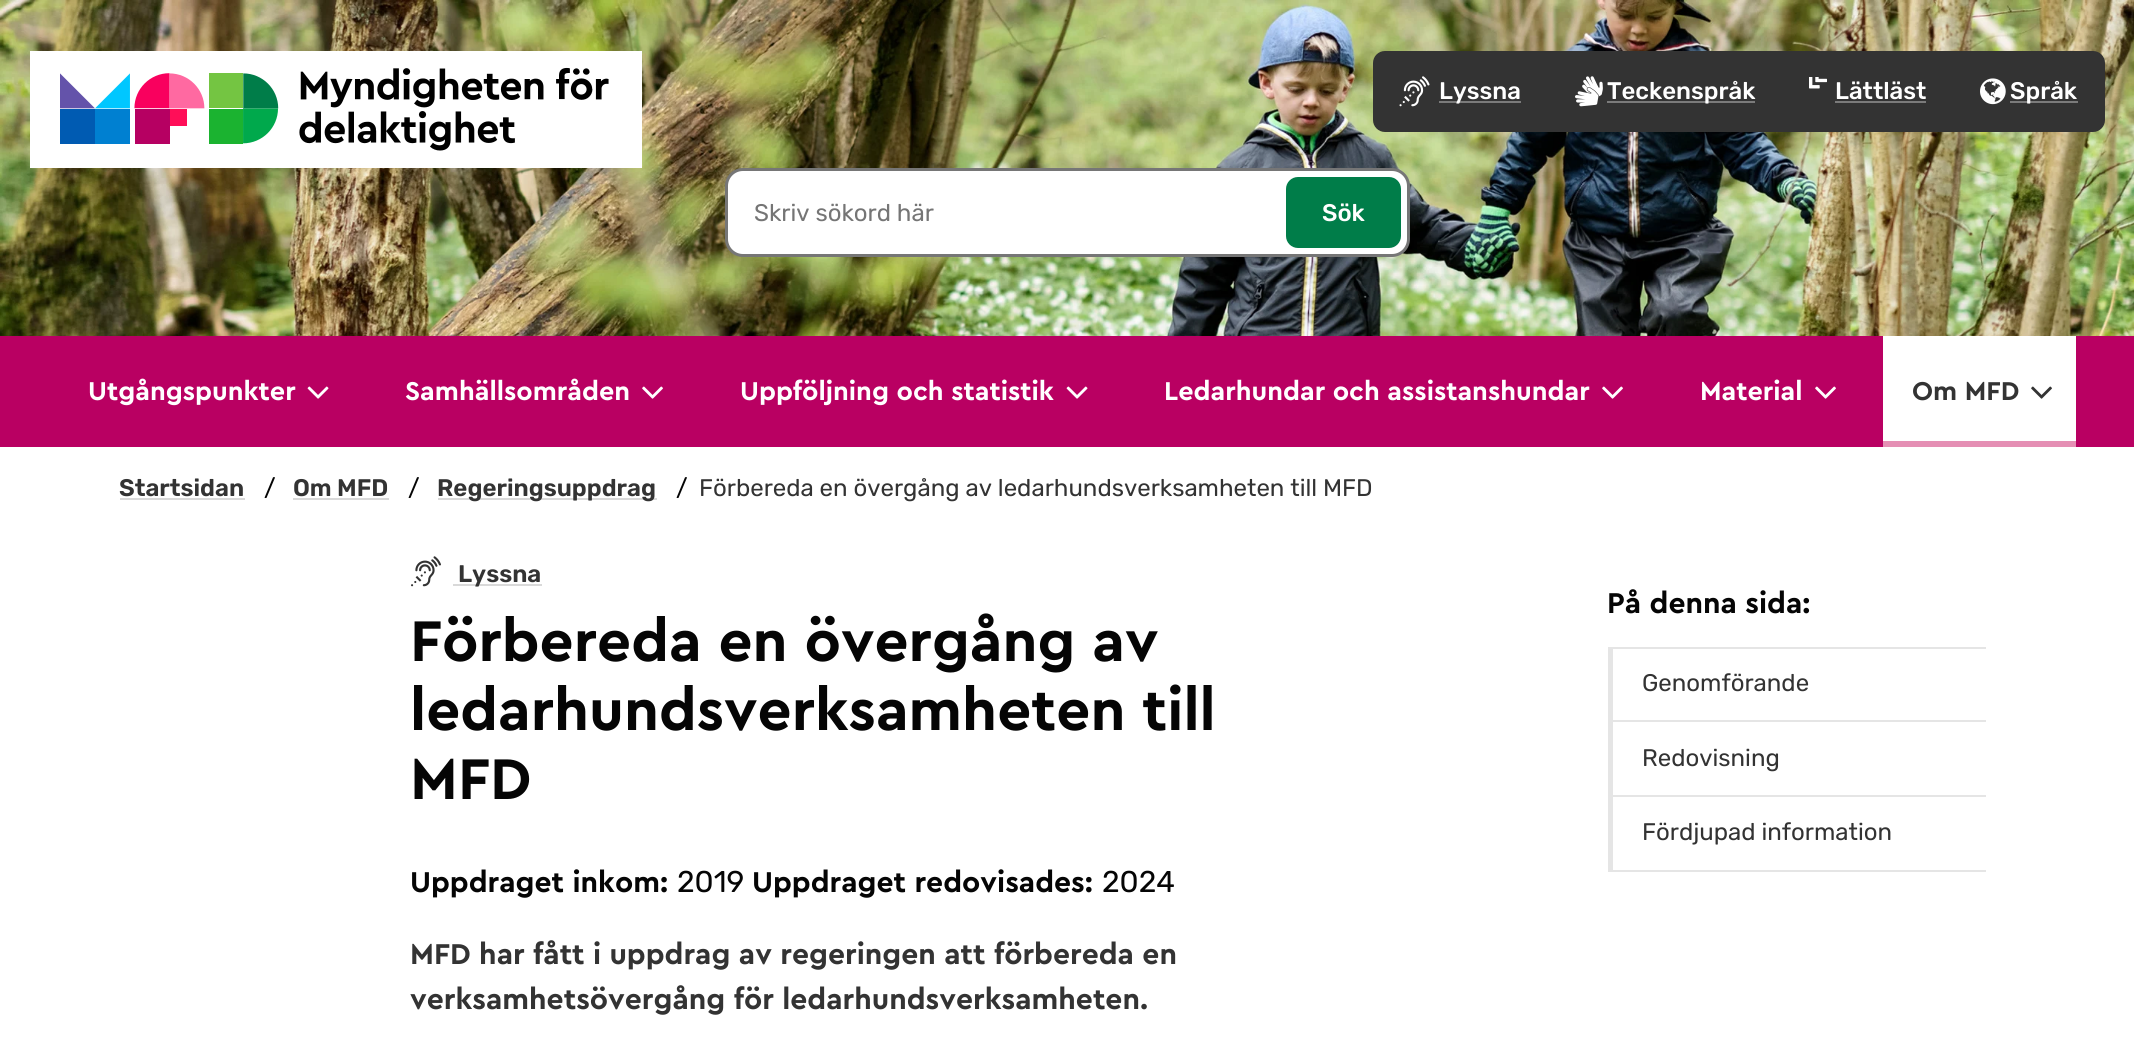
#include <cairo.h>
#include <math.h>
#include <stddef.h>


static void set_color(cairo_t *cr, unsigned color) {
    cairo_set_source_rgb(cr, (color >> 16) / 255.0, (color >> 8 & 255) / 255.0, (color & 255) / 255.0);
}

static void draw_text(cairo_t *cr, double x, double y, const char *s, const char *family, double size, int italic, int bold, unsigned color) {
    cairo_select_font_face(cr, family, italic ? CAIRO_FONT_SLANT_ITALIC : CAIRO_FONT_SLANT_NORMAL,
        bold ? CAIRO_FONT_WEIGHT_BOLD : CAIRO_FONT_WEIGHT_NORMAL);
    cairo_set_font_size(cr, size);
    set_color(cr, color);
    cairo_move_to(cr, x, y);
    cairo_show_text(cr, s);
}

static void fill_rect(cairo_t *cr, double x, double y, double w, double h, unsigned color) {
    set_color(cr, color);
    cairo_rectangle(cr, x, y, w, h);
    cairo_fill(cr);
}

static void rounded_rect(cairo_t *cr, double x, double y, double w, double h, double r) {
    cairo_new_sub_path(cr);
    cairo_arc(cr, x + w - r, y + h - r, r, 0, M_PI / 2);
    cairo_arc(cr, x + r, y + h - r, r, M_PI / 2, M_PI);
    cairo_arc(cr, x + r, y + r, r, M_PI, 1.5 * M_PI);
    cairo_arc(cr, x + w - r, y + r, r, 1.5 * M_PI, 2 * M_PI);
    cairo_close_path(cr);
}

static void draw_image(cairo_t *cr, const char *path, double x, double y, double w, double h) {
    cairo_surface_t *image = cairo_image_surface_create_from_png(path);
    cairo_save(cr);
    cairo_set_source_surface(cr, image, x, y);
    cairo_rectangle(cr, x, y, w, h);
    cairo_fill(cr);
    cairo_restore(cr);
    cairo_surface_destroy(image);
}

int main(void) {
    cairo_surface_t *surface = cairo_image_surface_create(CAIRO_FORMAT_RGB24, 2134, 1049);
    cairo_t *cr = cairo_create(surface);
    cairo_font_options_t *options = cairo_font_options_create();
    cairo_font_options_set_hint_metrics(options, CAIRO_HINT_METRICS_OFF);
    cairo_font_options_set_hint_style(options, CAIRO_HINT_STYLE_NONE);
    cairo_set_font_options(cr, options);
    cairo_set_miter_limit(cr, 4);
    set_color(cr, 0xFFFFFF);
    cairo_paint(cr);
    draw_image(cr, "assets/img1.png", 0, 0, 2134, 336);
    fill_rect(cr, 30, 51, 612, 117, 0xFFFFFF);
    draw_image(cr, "assets/img2.png", 60, 67, 549, 84);
    set_color(cr, 0x333333);
    rounded_rect(cr, 1373, 51, 732, 81, 12);
    cairo_fill(cr);
    draw_image(cr, "assets/img3.png", 1399, 76, 31, 31);
    fill_rect(cr, 1439, 101, 82, 2, 0x7B7B7B);
    draw_text(cr, 1439, 99, "Lyssna", "Rubik Medium", 24, 0, 0, 0xFFFFFF);
    draw_image(cr, "assets/img4.png", 1575, 76, 28, 31);
    fill_rect(cr, 1607, 101, 148, 2, 0x7B7B7B);
    draw_text(cr, 1607, 99, "Teckenspråk", "Rubik Medium", 24, 0, 0, 0xFFFFFF);
    draw_image(cr, "assets/img5.png", 1809, 77, 18, 12);
    draw_text(cr, 1835, 99, "Lättläst", "Rubik Medium", 24, 0, 0, 0xFFFFFF);
    fill_rect(cr, 1835, 101, 91, 2, 0x7B7B7B);
    draw_image(cr, "assets/img6.png", 1980, 78, 26, 27);
    fill_rect(cr, 2010, 101, 68, 2, 0x7B7B7B);
    draw_text(cr, 2010, 99, "Språk", "Rubik Medium", 24, 0, 0, 0xFFFFFF);
    rounded_rect(cr, 726.5, 169.5, 682, 86, 16.5);
    cairo_fill_preserve(cr);
    set_color(cr, 0x767676);
    cairo_set_line_width(cr, 3);
    cairo_stroke(cr);
    draw_text(cr, 754, 221, "Skriv sökord här", "Rubik", 24, 0, 0, 0x757575);
    set_color(cr, 0x007D49);
    rounded_rect(cr, 1286, 177, 115, 71, 12);
    cairo_fill(cr);
    draw_text(cr, 1322, 221, "Sök", "Rubik Medium", 24, 0, 0, 0xFFFFFF);
    fill_rect(cr, 0, 336, 2134, 111, 0xB90062);
    draw_text(cr, 88, 400, "Utgångspunkter", "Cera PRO", 27, 0, 1, 0xFFFFFF);
    draw_image(cr, "assets/img7.png", 307, 386, 22, 13);
    draw_text(cr, 405, 400, "Samhällsområden", "Cera PRO", 27, 0, 1, 0xFFFFFF);
    draw_image(cr, "assets/img8.png", 642, 386, 21, 13);
    draw_text(cr, 740, 400, "Uppföljning och statistik", "Cera PRO", 27, 0, 1, 0xFFFFFF);
    draw_image(cr, "assets/img7.png", 1066, 386, 22, 13);
    draw_text(cr, 1164, 400, "Ledarhundar och assistanshundar", "Cera PRO", 27, 0, 1, 0xFFFFFF);
    draw_image(cr, "assets/img8.png", 1602, 386, 21, 13);
    draw_text(cr, 1700, 400, "Material", "Cera PRO", 27, 0, 1, 0xFFFFFF);
    draw_image(cr, "assets/img8.png", 1815, 386, 21, 13);
    fill_rect(cr, 1883, 336, 193, 105, 0xFFFFFF);
    fill_rect(cr, 1883, 441, 193, 6, 0xE58FB4);
    draw_text(cr, 1912, 400, "Om MFD", "Cera PRO", 27, 0, 1, 0x333333);
    draw_image(cr, "assets/img9.png", 2031, 386, 21, 13);
    draw_text(cr, 119, 496, "Startsidan", "Rubik SemiBold", 24, 0, 0, 0x333333);
    fill_rect(cr, 120, 498, 125, 2, 0xD9D9D9);
    draw_text(cr, 264, 496, "/", "Rubik", 24, 0, 0, 0x050505);
    draw_text(cr, 293, 496, "Om MFD", "Rubik SemiBold", 24, 0, 0, 0x333333);
    fill_rect(cr, 293, 498, 96, 2, 0xD9D9D9);
    draw_text(cr, 408, 496, "/", "Rubik", 24, 0, 0, 0x050505);
    fill_rect(cr, 438, 498, 219, 2, 0xD9D9D9);
    draw_text(cr, 437, 496, "Regeringsuppdrag", "Rubik SemiBold", 24, 0, 0, 0x333333);
    draw_text(cr, 676, 496, "/", "Rubik", 24, 0, 0, 0x050505);
    draw_text(cr, 699, 496, "Förbereda en övergång av ledarhundsverksamheten till MFD", "Rubik", 24, 0, 0, 0x333333);
    draw_image(cr, "assets/img10.png", 411, 556, 30, 31);
    fill_rect(cr, 453, 584, 89, 2, 0xD9D9D9);
    draw_text(cr, 458, 582, "Lyssna", "Rubik SemiBold", 24, 0, 0, 0x333333);
    draw_text(cr, 410, 661, "Förbereda en övergång av", "Cera PRO", 60, 0, 1, 0x050505);
    draw_text(cr, 410, 730, "ledarhundsverksamheten till", "Cera PRO", 60, 0, 1, 0x050505);
    draw_text(cr, 410, 799, "MFD", "Cera PRO", 60, 0, 1, 0x050505);
    draw_text(cr, 410, 892, "Uppdraget inkom:", "Cera PRO", 30, 0, 1, 0x050505);
    draw_text(cr, 677, 892, "2019", "Rubik", 30, 0, 0, 0x050505);
    draw_text(cr, 752, 892, "Uppdraget redovisades:", "Cera PRO", 30, 0, 1, 0x050505);
    draw_text(cr, 1102, 892, "2024", "Rubik", 30, 0, 0, 0x050505);
    draw_text(cr, 410, 964, "MFD har fått i uppdrag av regeringen att förbereda en", "Cera PRO", 30, 0, 1, 0x333333);
    draw_text(cr, 410, 1009, "verksamhetsövergång för ledarhundsverksamheten.", "Cera PRO", 30, 0, 1, 0x333333);
    draw_text(cr, 1607, 613, "På denna sida:", "Cera PRO", 30, 0, 1, 0x050505);
    fill_rect(cr, 1608, 647, 378, 2, 0xE5E5E5);
    fill_rect(cr, 1608, 720, 378, 2, 0xE5E5E5);
    fill_rect(cr, 1608, 647, 5, 75, 0xE5E5E5);
    draw_text(cr, 1642, 691, "Genomförande", "Rubik", 24, 0, 0, 0x333333);
    fill_rect(cr, 1608, 795, 378, 2, 0xE5E5E5);
    fill_rect(cr, 1608, 722, 5, 75, 0xE5E5E5);
    draw_text(cr, 1642, 766, "Redovisning", "Rubik", 24, 0, 0, 0x333333);
    fill_rect(cr, 1608, 870, 378, 2, 0xE5E5E5);
    fill_rect(cr, 1608, 797, 5, 75, 0xE5E5E5);
    draw_text(cr, 1642, 840, "Fördjupad information", "Rubik", 24, 0, 0, 0x333333);
    cairo_surface_write_to_png(surface, "output.png");
    cairo_font_options_destroy(options);
    cairo_destroy(cr);
    cairo_surface_destroy(surface);
    return 0;
}
